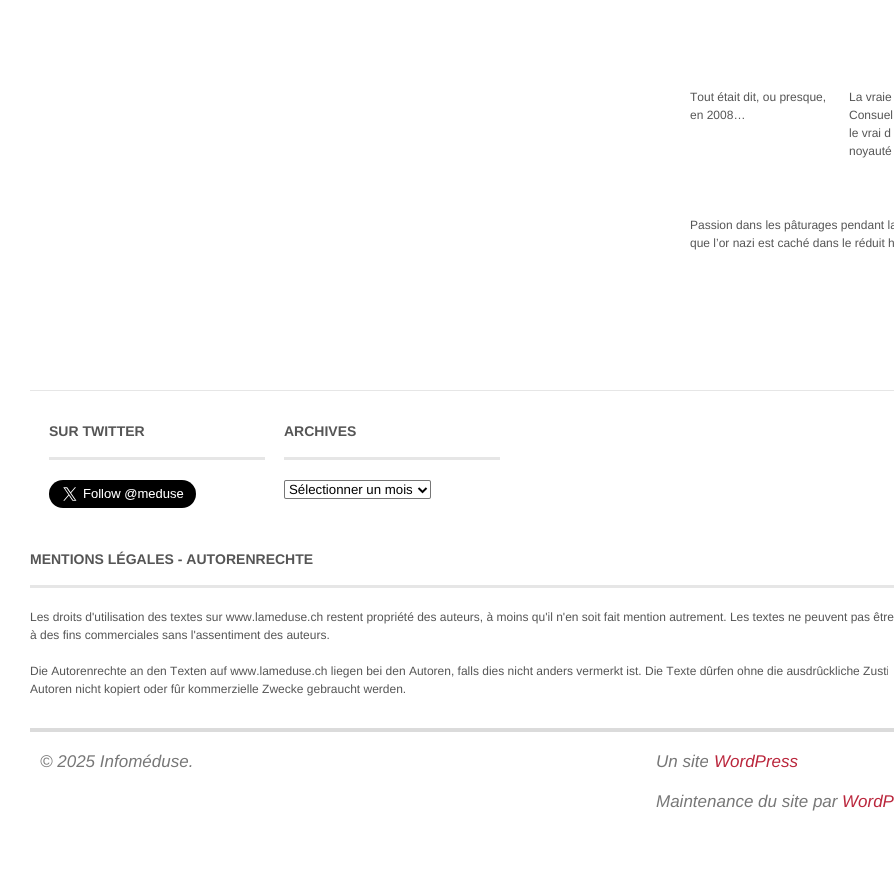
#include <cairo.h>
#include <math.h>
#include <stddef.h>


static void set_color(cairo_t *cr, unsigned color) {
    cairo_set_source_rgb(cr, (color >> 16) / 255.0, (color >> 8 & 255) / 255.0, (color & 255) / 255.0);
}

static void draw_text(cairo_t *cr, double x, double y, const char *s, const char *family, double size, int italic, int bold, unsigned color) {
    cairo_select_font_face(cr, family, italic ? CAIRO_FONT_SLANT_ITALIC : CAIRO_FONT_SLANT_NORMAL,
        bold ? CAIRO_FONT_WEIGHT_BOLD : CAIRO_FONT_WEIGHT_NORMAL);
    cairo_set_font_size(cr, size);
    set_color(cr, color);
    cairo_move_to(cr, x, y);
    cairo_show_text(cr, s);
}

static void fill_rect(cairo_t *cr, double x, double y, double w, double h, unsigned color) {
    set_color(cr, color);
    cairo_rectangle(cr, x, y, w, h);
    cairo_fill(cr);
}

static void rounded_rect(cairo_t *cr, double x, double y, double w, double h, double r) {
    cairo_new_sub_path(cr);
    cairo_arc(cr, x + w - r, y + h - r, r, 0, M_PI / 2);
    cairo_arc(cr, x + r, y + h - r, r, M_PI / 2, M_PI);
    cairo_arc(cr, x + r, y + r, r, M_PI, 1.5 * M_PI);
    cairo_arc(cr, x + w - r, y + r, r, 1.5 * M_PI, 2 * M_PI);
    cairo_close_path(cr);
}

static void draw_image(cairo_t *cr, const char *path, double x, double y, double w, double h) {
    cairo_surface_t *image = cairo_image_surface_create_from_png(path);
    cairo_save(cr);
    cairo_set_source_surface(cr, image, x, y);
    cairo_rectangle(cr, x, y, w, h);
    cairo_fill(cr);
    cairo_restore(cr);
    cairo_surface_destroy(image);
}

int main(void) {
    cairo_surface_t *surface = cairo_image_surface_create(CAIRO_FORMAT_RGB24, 894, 872);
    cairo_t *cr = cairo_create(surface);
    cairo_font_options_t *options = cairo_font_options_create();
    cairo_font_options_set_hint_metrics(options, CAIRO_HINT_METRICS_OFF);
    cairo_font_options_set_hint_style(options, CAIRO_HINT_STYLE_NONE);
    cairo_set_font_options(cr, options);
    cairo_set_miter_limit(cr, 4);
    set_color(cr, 0xFFFFFF);
    cairo_paint(cr);
    draw_text(cr, 690, 101, "Tout était dit, ou presque,", "Liberation Sans", 12, 0, 0, 0x555555);
    draw_text(cr, 690, 119, "en 2008…", "Liberation Sans", 12, 0, 0, 0x555555);
    draw_text(cr, 849, 101, "La vraie", "Liberation Sans", 12, 0, 0, 0x555555);
    draw_text(cr, 849, 119, "Consuel", "Liberation Sans", 12, 0, 0, 0x555555);
    draw_text(cr, 849, 137, "le vrai d", "Liberation Sans", 12, 0, 0, 0x555555);
    draw_text(cr, 849, 155, "noyauté", "Liberation Sans", 12, 0, 0, 0x555555);
    draw_text(cr, 690, 229, "Passion dans les pâturages pendant la", "Liberation Sans", 12, 0, 0, 0x555555);
    draw_text(cr, 690, 247, "que l’or nazi est caché dans le réduit h", "Liberation Sans", 12, 0, 0, 0x555555);
    fill_rect(cr, 30, 390, 864, 1, 0xE6E6E6);
    fill_rect(cr, 49, 457, 216, 3, 0xE6E6E6);
    draw_text(cr, 49, 436, "SUR TWITTER", "Liberation Sans", 14, 0, 1, 0x555555);
    draw_image(cr, "assets/img1.png", 49, 480, 147, 28);
    fill_rect(cr, 284, 457, 216, 3, 0xE6E6E6);
    draw_text(cr, 284, 436, "ARCHIVES", "Liberation Sans", 14, 0, 1, 0x555555);
    rounded_rect(cr, 284.5, 480.5, 146, 18, 1.5);
    set_color(cr, 0x767676);
    cairo_set_line_width(cr, 1);
    cairo_stroke(cr);
    cairo_new_path(cr);
    cairo_move_to(cr, 418.5, 488);
    cairo_line_to(cr, 422.5, 492);
    cairo_line_to(cr, 426.5, 488);
    set_color(cr, 0x000000);
    cairo_set_line_width(cr, 2);
    cairo_stroke(cr);
    draw_text(cr, 289, 494, "Sélectionner un mois", "Liberation Sans", 13.25, 0, 0, 0x000000);
    fill_rect(cr, 30, 585, 864, 3, 0xE6E6E6);
    draw_text(cr, 30, 564, "MENTIONS LÉGALES - AUTORENRECHTE", "Liberation Sans", 14, 0, 1, 0x555555);
    draw_text(cr, 30, 621, "Les droits d'utilisation des textes sur www.lameduse.ch restent propriété des auteurs, à moins qu'il n'en soit fait mention autrement. Les textes ne peuvent pas être", "Liberation Sans", 12, 0, 0, 0x555555);
    draw_text(cr, 30, 639, "à des fins commerciales sans l'assentiment des auteurs.", "Liberation Sans", 12, 0, 0, 0x555555);
    draw_text(cr, 30, 675, "Die Autorenrechte an den Texten auf www.lameduse.ch liegen bei den Autoren, falls dies nicht anders vermerkt ist. Die Texte dûrfen ohne die ausdrûckliche Zusti", "Liberation Sans", 12, 0, 0, 0x555555);
    draw_text(cr, 30, 693, "Autoren nicht kopiert oder fûr kommerzielle Zwecke gebraucht werden.", "Liberation Sans", 12, 0, 0, 0x555555);
    fill_rect(cr, 30, 728, 864, 4, 0xDBDBDB);
    draw_text(cr, 40, 767, "© 2025 Infoméduse.", "Liberation Sans", 17, 1, 0, 0x777777);
    draw_text(cr, 656, 767, "Un site", "Liberation Sans", 17, 1, 0, 0x777777);
    draw_text(cr, 714, 767, "WordPress", "Liberation Sans", 17, 1, 0, 0xBA263C);
    draw_text(cr, 656, 807, "Maintenance du site par", "Liberation Sans", 17, 1, 0, 0x777777);
    draw_text(cr, 842, 807, "WordP", "Liberation Sans", 17, 1, 0, 0xBA263C);
    cairo_surface_write_to_png(surface, "output.png");
    cairo_font_options_destroy(options);
    cairo_destroy(cr);
    cairo_surface_destroy(surface);
    return 0;
}
